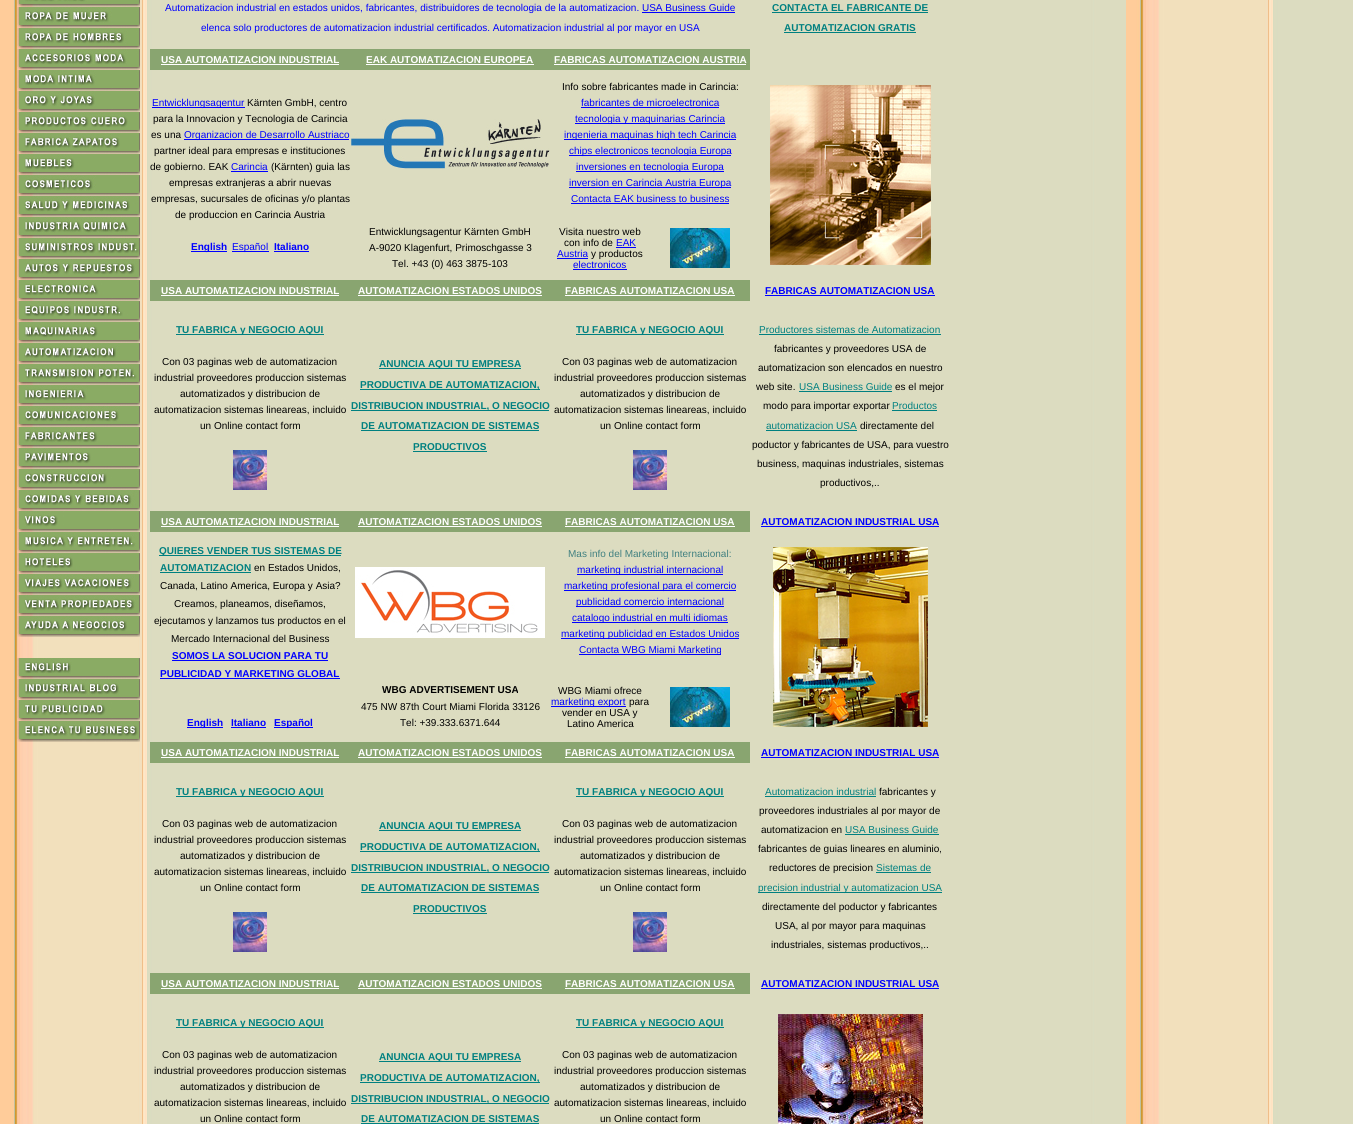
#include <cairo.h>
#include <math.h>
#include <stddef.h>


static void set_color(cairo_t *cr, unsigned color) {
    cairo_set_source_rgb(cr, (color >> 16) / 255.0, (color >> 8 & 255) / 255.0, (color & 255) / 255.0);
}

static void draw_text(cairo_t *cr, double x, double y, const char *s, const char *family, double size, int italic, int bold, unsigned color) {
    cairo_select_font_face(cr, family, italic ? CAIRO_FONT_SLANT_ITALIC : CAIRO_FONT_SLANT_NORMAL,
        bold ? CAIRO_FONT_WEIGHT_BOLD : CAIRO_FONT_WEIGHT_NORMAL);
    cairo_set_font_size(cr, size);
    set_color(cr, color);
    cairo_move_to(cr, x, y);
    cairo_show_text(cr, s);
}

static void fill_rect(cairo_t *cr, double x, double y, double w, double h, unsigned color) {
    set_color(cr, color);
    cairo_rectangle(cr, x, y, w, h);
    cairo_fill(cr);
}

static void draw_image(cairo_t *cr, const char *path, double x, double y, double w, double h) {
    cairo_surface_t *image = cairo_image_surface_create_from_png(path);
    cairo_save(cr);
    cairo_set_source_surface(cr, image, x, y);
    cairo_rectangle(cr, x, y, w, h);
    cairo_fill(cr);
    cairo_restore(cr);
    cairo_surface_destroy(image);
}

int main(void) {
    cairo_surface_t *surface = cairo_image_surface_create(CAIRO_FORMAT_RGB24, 1353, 1124);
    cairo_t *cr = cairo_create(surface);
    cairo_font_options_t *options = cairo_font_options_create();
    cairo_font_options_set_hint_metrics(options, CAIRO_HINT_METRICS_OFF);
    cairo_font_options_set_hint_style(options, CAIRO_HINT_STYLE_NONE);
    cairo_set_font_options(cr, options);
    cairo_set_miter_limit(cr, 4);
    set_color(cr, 0xFFFFFF);
    cairo_paint(cr);
    draw_image(cr, "assets/img1.png", 0, 0, 1353, 1124);
    draw_image(cr, "assets/img2.png", 17, 0, 123, 7);
    draw_image(cr, "assets/img3.png", 17, 7, 123, 21);
    draw_image(cr, "assets/img4.png", 17, 28, 123, 21);
    draw_text(cr, 165, 11, "Automatizacion industrial en estados unidos, fabricantes, distribuidores de tecnologia de la automatizacion. USA Business Guide", "Liberation Sans", 10, 0, 0, 0x0000FF);
    fill_rect(cr, 642, 12, 93, 1, 0x0000FF);
    draw_text(cr, 201, 31, "elenca solo productores de automatizacion industrial certificados. Automatizacion industrial al por mayor en USA", "Liberation Sans", 10, 0, 0, 0x0000FF);
    draw_text(cr, 772, 11, "CONTACTA EL FABRICANTE DE", "Liberation Sans", 10, 0, 1, 0x008080);
    fill_rect(cr, 772, 12, 156, 1, 0x008080);
    draw_text(cr, 784, 31, "AUTOMATIZACION GRATIS", "Liberation Sans", 10, 0, 1, 0x008080);
    fill_rect(cr, 784, 32, 132, 1, 0x008080);
    draw_image(cr, "assets/img5.png", 17, 49, 123, 21);
    fill_rect(cr, 150, 49, 600, 21, 0x89A570);
    draw_text(cr, 161, 63, "USA AUTOMATIZACION INDUSTRIAL", "Liberation Sans", 10, 0, 1, 0xFFFFFF);
    fill_rect(cr, 161, 64, 178, 1, 0xFFFFFF);
    draw_text(cr, 366, 63, "EAK AUTOMATIZACION EUROPEA", "Liberation Sans", 10, 0, 1, 0xFFFFFF);
    fill_rect(cr, 366, 64, 168, 1, 0xFFFFFF);
    draw_text(cr, 554, 63, "FABRICAS AUTOMATIZACION AUSTRIA", "Liberation Sans", 10, 0, 1, 0xFFFFFF);
    fill_rect(cr, 554, 64, 192, 1, 0xFFFFFF);
    draw_image(cr, "assets/img6.png", 17, 70, 123, 21);
    draw_image(cr, "assets/img7.png", 17, 91, 123, 21);
    draw_image(cr, "assets/img8.png", 17, 112, 123, 21);
    draw_image(cr, "assets/img9.png", 17, 133, 123, 21);
    draw_image(cr, "assets/img10.png", 17, 154, 123, 21);
    draw_image(cr, "assets/img11.png", 17, 175, 123, 21);
    draw_image(cr, "assets/img12.png", 17, 196, 123, 21);
    draw_image(cr, "assets/img13.png", 17, 217, 123, 21);
    draw_image(cr, "assets/img14.png", 17, 238, 123, 21);
    draw_image(cr, "assets/img15.png", 17, 259, 123, 21);
    fill_rect(cr, 152, 107, 93, 1, 0x0000FF);
    draw_text(cr, 152, 106, "Entwicklungsagentur", "Liberation Sans", 10, 0, 0, 0x0000FF);
    draw_text(cr, 247, 106, "Kärnten GmbH, centro", "Liberation Sans", 10, 0, 0, 0x000000);
    draw_text(cr, 153, 122, "para la Innovacion y Tecnologia de Carincia", "Liberation Sans", 10, 0, 0, 0x000000);
    draw_text(cr, 151, 138, "es una", "Liberation Sans", 10, 0, 0, 0x000000);
    fill_rect(cr, 184, 139, 165, 1, 0x0000FF);
    draw_text(cr, 184, 138, "Organizacion de Desarrollo Austriaco", "Liberation Sans", 10, 0, 0, 0x0000FF);
    draw_text(cr, 154, 154, "partner ideal para empresas e instituciones", "Liberation Sans", 10, 0, 0, 0x000000);
    draw_text(cr, 150, 170, "de gobierno. EAK", "Liberation Sans", 10, 0, 0, 0x000000);
    fill_rect(cr, 231, 171, 37, 1, 0x0000FF);
    draw_text(cr, 231, 170, "Carincia", "Liberation Sans", 10, 0, 0, 0x0000FF);
    draw_text(cr, 271, 170, "(Kärnten) guia las", "Liberation Sans", 10, 0, 0, 0x000000);
    draw_text(cr, 169, 186, "empresas extranjeras a abrir nuevas", "Liberation Sans", 10, 0, 0, 0x000000);
    draw_text(cr, 151, 202, "empresas, sucursales de oficinas y/o plantas", "Liberation Sans", 10, 0, 0, 0x000000);
    draw_text(cr, 175, 218, "de produccion en Carincia Austria", "Liberation Sans", 10, 0, 0, 0x000000);
    fill_rect(cr, 191, 251, 36, 1, 0x0000FF);
    draw_text(cr, 191, 250, "English", "Liberation Sans", 10, 0, 1, 0x0000FF);
    fill_rect(cr, 232, 251, 37, 1, 0x0000FF);
    draw_text(cr, 232, 250, "Español", "Liberation Sans", 10, 0, 0, 0x0000FF);
    draw_text(cr, 274, 250, "Italiano", "Liberation Sans", 10, 0, 1, 0x0000FF);
    fill_rect(cr, 274, 251, 35, 1, 0x0000FF);
    draw_image(cr, "assets/img16.png", 351, 119, 199, 51);
    draw_text(cr, 562, 90, "Info sobre fabricantes made in Carincia:", "Liberation Sans", 10, 0, 0, 0x000000);
    draw_text(cr, 581, 106, "fabricantes de microelectronica", "Liberation Sans", 10, 0, 0, 0x0000FF);
    fill_rect(cr, 581, 107, 138, 1, 0x0000FF);
    fill_rect(cr, 575, 123, 150, 1, 0x0000FF);
    draw_text(cr, 575, 122, "tecnologia y maquinarias Carincia", "Liberation Sans", 10, 0, 0, 0x0000FF);
    fill_rect(cr, 564, 139, 172, 1, 0x0000FF);
    draw_text(cr, 564, 138, "ingenieria maquinas high tech Carincia", "Liberation Sans", 10, 0, 0, 0x0000FF);
    fill_rect(cr, 569, 155, 162, 1, 0x0000FF);
    draw_text(cr, 569, 154, "chips electronicos tecnologia Europa", "Liberation Sans", 10, 0, 0, 0x0000FF);
    fill_rect(cr, 576, 171, 148, 1, 0x0000FF);
    draw_text(cr, 576, 170, "inversiones en tecnologia Europa", "Liberation Sans", 10, 0, 0, 0x0000FF);
    fill_rect(cr, 569, 187, 162, 1, 0x0000FF);
    draw_text(cr, 569, 186, "inversion en Carincia Austria Europa", "Liberation Sans", 10, 0, 0, 0x0000FF);
    draw_text(cr, 571, 202, "Contacta EAK business to business", "Liberation Sans", 10, 0, 0, 0x0000FF);
    fill_rect(cr, 571, 203, 158, 1, 0x0000FF);
    draw_image(cr, "assets/img17.png", 770, 85, 161, 180);
    draw_text(cr, 369, 235, "Entwicklungsagentur Kärnten GmbH", "Liberation Sans", 10, 0, 0, 0x000000);
    draw_text(cr, 369, 251, "A-9020 Klagenfurt, Primoschgasse 3", "Liberation Sans", 10, 0, 0, 0x000000);
    draw_text(cr, 392, 267, "Tel. +43 (0) 463 3875-103", "Liberation Sans", 10, 0, 0, 0x000000);
    draw_text(cr, 559, 235, "Visita nuestro web", "Liberation Sans", 10, 0, 0, 0x000000);
    draw_text(cr, 564, 246, "con info de", "Liberation Sans", 10, 0, 0, 0x000000);
    draw_text(cr, 616, 246, "EAK", "Liberation Sans", 10, 0, 0, 0x0000FF);
    fill_rect(cr, 616, 247, 20, 1, 0x0000FF);
    draw_text(cr, 557, 257, "Austria", "Liberation Sans", 10, 0, 0, 0x0000FF);
    fill_rect(cr, 557, 258, 31, 1, 0x0000FF);
    draw_text(cr, 591, 257, "y productos", "Liberation Sans", 10, 0, 0, 0x000000);
    draw_text(cr, 573, 268, "electronicos", "Liberation Sans", 10, 0, 0, 0x0000FF);
    fill_rect(cr, 573, 269, 54, 1, 0x0000FF);
    draw_image(cr, "assets/img18.png", 670, 228, 60, 40);
    draw_image(cr, "assets/img19.png", 17, 280, 123, 21);
    fill_rect(cr, 150, 280, 600, 21, 0x89A570);
    draw_text(cr, 161, 294, "USA AUTOMATIZACION INDUSTRIAL", "Liberation Sans", 10, 0, 1, 0xFFFFFF);
    fill_rect(cr, 161, 295, 178, 1, 0xFFFFFF);
    draw_text(cr, 358, 294, "AUTOMATIZACION ESTADOS UNIDOS", "Liberation Sans", 10, 0, 1, 0xFFFFFF);
    fill_rect(cr, 358, 295, 184, 1, 0xFFFFFF);
    draw_text(cr, 565, 294, "FABRICAS AUTOMATIZACION USA", "Liberation Sans", 10, 0, 1, 0xFFFFFF);
    fill_rect(cr, 565, 295, 170, 1, 0xFFFFFF);
    draw_text(cr, 765, 294, "FABRICAS AUTOMATIZACION USA", "Liberation Sans", 10, 0, 1, 0x0000FF);
    fill_rect(cr, 765, 295, 170, 1, 0x0000FF);
    draw_image(cr, "assets/img20.png", 17, 301, 123, 21);
    draw_image(cr, "assets/img21.png", 17, 322, 123, 21);
    draw_image(cr, "assets/img22.png", 17, 343, 123, 21);
    draw_image(cr, "assets/img23.png", 17, 364, 123, 21);
    draw_image(cr, "assets/img24.png", 17, 385, 123, 21);
    draw_image(cr, "assets/img25.png", 17, 406, 123, 21);
    draw_image(cr, "assets/img26.png", 17, 427, 123, 21);
    draw_image(cr, "assets/img27.png", 17, 448, 123, 21);
    draw_image(cr, "assets/img28.png", 17, 469, 123, 21);
    draw_image(cr, "assets/img29.png", 17, 490, 123, 21);
    fill_rect(cr, 176, 334, 148, 1, 0x008080);
    draw_text(cr, 176, 333, "TU FABRICA y NEGOCIO AQUI", "Liberation Sans", 10, 0, 1, 0x008080);
    draw_text(cr, 162, 365, "Con 03 paginas web de automatizacion", "Liberation Sans", 10, 0, 0, 0x000000);
    draw_text(cr, 154, 381, "industrial proveedores produccion sistemas", "Liberation Sans", 10, 0, 0, 0x000000);
    draw_text(cr, 180, 397, "automatizados y distribucion de", "Liberation Sans", 10, 0, 0, 0x000000);
    draw_text(cr, 154, 413, "automatizacion sistemas lineareas, incluido", "Liberation Sans", 10, 0, 0, 0x000000);
    draw_text(cr, 200, 429, "un Online contact form", "Liberation Sans", 10, 0, 0, 0x000000);
    draw_image(cr, "assets/img30.png", 233, 450, 34, 40);
    fill_rect(cr, 379, 368, 142, 1, 0x008080);
    draw_text(cr, 379, 367, "ANUNCIA AQUI TU EMPRESA", "Liberation Sans", 10, 0, 1, 0x008080);
    fill_rect(cr, 360, 389, 180, 1, 0x008080);
    draw_text(cr, 360, 388, "PRODUCTIVA DE AUTOMATIZACION,", "Liberation Sans", 10, 0, 1, 0x008080);
    fill_rect(cr, 351, 410, 198, 1, 0x008080);
    draw_text(cr, 351, 409, "DISTRIBUCION INDUSTRIAL, O NEGOCIO", "Liberation Sans", 10, 0, 1, 0x008080);
    draw_text(cr, 361, 429, "DE AUTOMATIZACION DE SISTEMAS", "Liberation Sans", 10, 0, 1, 0x008080);
    fill_rect(cr, 361, 430, 178, 1, 0x008080);
    draw_text(cr, 413, 450, "PRODUCTIVOS", "Liberation Sans", 10, 0, 1, 0x008080);
    fill_rect(cr, 413, 451, 74, 1, 0x008080);
    fill_rect(cr, 576, 334, 148, 1, 0x008080);
    draw_text(cr, 576, 333, "TU FABRICA y NEGOCIO AQUI", "Liberation Sans", 10, 0, 1, 0x008080);
    draw_text(cr, 562, 365, "Con 03 paginas web de automatizacion", "Liberation Sans", 10, 0, 0, 0x000000);
    draw_text(cr, 554, 381, "industrial proveedores produccion sistemas", "Liberation Sans", 10, 0, 0, 0x000000);
    draw_text(cr, 580, 397, "automatizados y distribucion de", "Liberation Sans", 10, 0, 0, 0x000000);
    draw_text(cr, 554, 413, "automatizacion sistemas lineareas, incluido", "Liberation Sans", 10, 0, 0, 0x000000);
    draw_text(cr, 600, 429, "un Online contact form", "Liberation Sans", 10, 0, 0, 0x000000);
    draw_image(cr, "assets/img30.png", 633, 450, 34, 40);
    draw_text(cr, 759, 333, "Productores sistemas de Automatizacion", "Liberation Sans", 10, 0, 0, 0x008080);
    fill_rect(cr, 759, 334, 182, 1, 0x008080);
    draw_text(cr, 774, 352, "fabricantes y proveedores USA de", "Liberation Sans", 10, 0, 0, 0x000000);
    draw_text(cr, 758, 371, "automatizacion son elencados en nuestro", "Liberation Sans", 10, 0, 0, 0x000000);
    draw_text(cr, 756, 390, "web site.", "Liberation Sans", 10, 0, 0, 0x000000);
    draw_text(cr, 799, 390, "USA Business Guide", "Liberation Sans", 10, 0, 0, 0x008080);
    fill_rect(cr, 799, 391, 93, 1, 0x008080);
    draw_text(cr, 895, 390, "es el mejor", "Liberation Sans", 10, 0, 0, 0x000000);
    draw_text(cr, 763, 409, "modo para importar exportar", "Liberation Sans", 10, 0, 0, 0x000000);
    fill_rect(cr, 892, 410, 45, 1, 0x008080);
    draw_text(cr, 892, 409, "Productos", "Liberation Sans", 10, 0, 0, 0x008080);
    draw_text(cr, 766, 429, "automatizacion USA", "Liberation Sans", 10, 0, 0, 0x008080);
    fill_rect(cr, 766, 430, 91, 1, 0x008080);
    draw_text(cr, 860, 429, "directamente del", "Liberation Sans", 10, 0, 0, 0x000000);
    draw_text(cr, 752, 448, "poductor y fabricantes de USA, para vuestro", "Liberation Sans", 10, 0, 0, 0x000000);
    draw_text(cr, 757, 467, "business, maquinas industriales, sistemas", "Liberation Sans", 10, 0, 0, 0x000000);
    draw_text(cr, 820, 486, "productivos,..", "Liberation Sans", 10, 0, 0, 0x000000);
    draw_image(cr, "assets/img31.png", 17, 511, 123, 21);
    fill_rect(cr, 150, 511, 600, 21, 0x89A570);
    draw_text(cr, 161, 525, "USA AUTOMATIZACION INDUSTRIAL", "Liberation Sans", 10, 0, 1, 0xFFFFFF);
    fill_rect(cr, 161, 526, 178, 1, 0xFFFFFF);
    draw_text(cr, 358, 525, "AUTOMATIZACION ESTADOS UNIDOS", "Liberation Sans", 10, 0, 1, 0xFFFFFF);
    fill_rect(cr, 358, 526, 184, 1, 0xFFFFFF);
    draw_text(cr, 565, 525, "FABRICAS AUTOMATIZACION USA", "Liberation Sans", 10, 0, 1, 0xFFFFFF);
    fill_rect(cr, 565, 526, 170, 1, 0xFFFFFF);
    draw_text(cr, 761, 525, "AUTOMATIZACION INDUSTRIAL USA", "Liberation Sans", 10, 0, 1, 0x0000FF);
    fill_rect(cr, 761, 526, 178, 1, 0x0000FF);
    draw_image(cr, "assets/img32.png", 17, 532, 123, 21);
    draw_image(cr, "assets/img33.png", 17, 553, 123, 21);
    draw_image(cr, "assets/img34.png", 17, 574, 123, 21);
    draw_image(cr, "assets/img35.png", 17, 595, 123, 21);
    draw_image(cr, "assets/img36.png", 17, 616, 123, 21);
    draw_image(cr, "assets/img37.png", 17, 658, 123, 21);
    draw_image(cr, "assets/img38.png", 17, 679, 123, 21);
    draw_image(cr, "assets/img39.png", 17, 700, 123, 21);
    draw_image(cr, "assets/img40.png", 17, 721, 123, 21);
    fill_rect(cr, 159, 555, 182, 1, 0x008080);
    draw_text(cr, 159, 554, "QUIERES VENDER TUS SISTEMAS DE", "Liberation Sans", 10, 0, 1, 0x008080);
    draw_text(cr, 160, 571, "AUTOMATIZACION", "Liberation Sans", 10, 0, 1, 0x008080);
    fill_rect(cr, 160, 572, 91, 1, 0x008080);
    draw_text(cr, 254, 571, "en Estados Unidos,", "Liberation Sans", 10, 0, 0, 0x000000);
    draw_text(cr, 160, 589, "Canada, Latino America, Europa y Asia?", "Liberation Sans", 10, 0, 0, 0x000000);
    draw_text(cr, 174, 607, "Creamos, planeamos, diseñamos,", "Liberation Sans", 10, 0, 0, 0x000000);
    draw_text(cr, 154, 624, "ejecutamos y lanzamos tus productos en el", "Liberation Sans", 10, 0, 0, 0x000000);
    draw_text(cr, 171, 642, "Mercado Internacional del Business", "Liberation Sans", 10, 0, 0, 0x000000);
    draw_text(cr, 172, 659, "SOMOS LA SOLUCION PARA TU", "Liberation Sans", 10, 0, 1, 0x0000FF);
    fill_rect(cr, 172, 660, 156, 1, 0x0000FF);
    draw_text(cr, 160, 677, "PUBLICIDAD Y MARKETING GLOBAL", "Liberation Sans", 10, 0, 1, 0x0000FF);
    fill_rect(cr, 160, 678, 180, 1, 0x0000FF);
    fill_rect(cr, 187, 727, 36, 1, 0x0000FF);
    draw_text(cr, 187, 726, "English", "Liberation Sans", 10, 0, 1, 0x0000FF);
    draw_text(cr, 231, 726, "Italiano", "Liberation Sans", 10, 0, 1, 0x0000FF);
    fill_rect(cr, 231, 727, 35, 1, 0x0000FF);
    fill_rect(cr, 274, 727, 24, 1, 0x0000FF);
    draw_text(cr, 274, 726, "Español", "Liberation Sans", 10, 0, 1, 0x0000FF);
    fill_rect(cr, 298, 727, 15, 1, 0x0000FF);
    draw_image(cr, "assets/img41.png", 355, 567, 190, 71);
    draw_text(cr, 568, 557, "Mas info del Marketing Internacional:", "Liberation Sans", 10, 0, 0, 0x408080);
    fill_rect(cr, 577, 574, 146, 1, 0x0000FF);
    draw_text(cr, 577, 573, "marketing industrial internacional", "Liberation Sans", 10, 0, 0, 0x0000FF);
    fill_rect(cr, 564, 590, 172, 1, 0x0000FF);
    draw_text(cr, 564, 589, "marketing profesional para el comercio", "Liberation Sans", 10, 0, 0, 0x0000FF);
    fill_rect(cr, 576, 606, 148, 1, 0x0000FF);
    draw_text(cr, 576, 605, "publicidad comercio internacional", "Liberation Sans", 10, 0, 0, 0x0000FF);
    fill_rect(cr, 572, 622, 156, 1, 0x0000FF);
    draw_text(cr, 572, 621, "catalogo industrial en multi idiomas", "Liberation Sans", 10, 0, 0, 0x0000FF);
    fill_rect(cr, 561, 638, 178, 1, 0x0000FF);
    draw_text(cr, 561, 637, "marketing publicidad en Estados Unidos", "Liberation Sans", 10, 0, 0, 0x0000FF);
    fill_rect(cr, 579, 654, 142, 1, 0x0000FF);
    draw_text(cr, 579, 653, "Contacta WBG Miami Marketing", "Liberation Sans", 10, 0, 0, 0x0000FF);
    draw_image(cr, "assets/img42.png", 773, 547, 155, 180);
    draw_text(cr, 382, 693, "WBG ADVERTISEMENT USA", "Liberation Sans", 10, 0, 1, 0x000000);
    draw_text(cr, 361, 710, "475 NW 87th Court Miami Florida 33126", "Liberation Sans", 10, 0, 0, 0x000000);
    draw_text(cr, 400, 726, "Tel: +39.333.6371.644", "Liberation Sans", 10, 0, 0, 0x000000);
    draw_text(cr, 558, 694, "WBG Miami ofrece", "Liberation Sans", 10, 0, 0, 0x000000);
    fill_rect(cr, 551, 706, 75, 1, 0x0000FF);
    draw_text(cr, 551, 705, "marketing export", "Liberation Sans", 10, 0, 0, 0x0000FF);
    draw_text(cr, 629, 705, "para", "Liberation Sans", 10, 0, 0, 0x000000);
    draw_text(cr, 562, 716, "vender en USA y", "Liberation Sans", 10, 0, 0, 0x000000);
    draw_text(cr, 567, 727, "Latino America", "Liberation Sans", 10, 0, 0, 0x000000);
    draw_image(cr, "assets/img18.png", 670, 687, 60, 40);
    fill_rect(cr, 150, 742, 600, 21, 0x89A570);
    draw_text(cr, 161, 756, "USA AUTOMATIZACION INDUSTRIAL", "Liberation Sans", 10, 0, 1, 0xFFFFFF);
    fill_rect(cr, 161, 757, 178, 1, 0xFFFFFF);
    draw_text(cr, 358, 756, "AUTOMATIZACION ESTADOS UNIDOS", "Liberation Sans", 10, 0, 1, 0xFFFFFF);
    fill_rect(cr, 358, 757, 184, 1, 0xFFFFFF);
    draw_text(cr, 565, 756, "FABRICAS AUTOMATIZACION USA", "Liberation Sans", 10, 0, 1, 0xFFFFFF);
    fill_rect(cr, 565, 757, 170, 1, 0xFFFFFF);
    draw_text(cr, 761, 756, "AUTOMATIZACION INDUSTRIAL USA", "Liberation Sans", 10, 0, 1, 0x0000FF);
    fill_rect(cr, 761, 757, 178, 1, 0x0000FF);
    fill_rect(cr, 176, 796, 148, 1, 0x008080);
    draw_text(cr, 176, 795, "TU FABRICA y NEGOCIO AQUI", "Liberation Sans", 10, 0, 1, 0x008080);
    draw_text(cr, 162, 827, "Con 03 paginas web de automatizacion", "Liberation Sans", 10, 0, 0, 0x000000);
    draw_text(cr, 154, 843, "industrial proveedores produccion sistemas", "Liberation Sans", 10, 0, 0, 0x000000);
    draw_text(cr, 180, 859, "automatizados y distribucion de", "Liberation Sans", 10, 0, 0, 0x000000);
    draw_text(cr, 154, 875, "automatizacion sistemas lineareas, incluido", "Liberation Sans", 10, 0, 0, 0x000000);
    draw_text(cr, 200, 891, "un Online contact form", "Liberation Sans", 10, 0, 0, 0x000000);
    draw_image(cr, "assets/img30.png", 233, 912, 34, 40);
    fill_rect(cr, 379, 830, 142, 1, 0x008080);
    draw_text(cr, 379, 829, "ANUNCIA AQUI TU EMPRESA", "Liberation Sans", 10, 0, 1, 0x008080);
    fill_rect(cr, 360, 851, 180, 1, 0x008080);
    draw_text(cr, 360, 850, "PRODUCTIVA DE AUTOMATIZACION,", "Liberation Sans", 10, 0, 1, 0x008080);
    fill_rect(cr, 351, 872, 198, 1, 0x008080);
    draw_text(cr, 351, 871, "DISTRIBUCION INDUSTRIAL, O NEGOCIO", "Liberation Sans", 10, 0, 1, 0x008080);
    draw_text(cr, 361, 891, "DE AUTOMATIZACION DE SISTEMAS", "Liberation Sans", 10, 0, 1, 0x008080);
    fill_rect(cr, 361, 892, 178, 1, 0x008080);
    draw_text(cr, 413, 912, "PRODUCTIVOS", "Liberation Sans", 10, 0, 1, 0x008080);
    fill_rect(cr, 413, 913, 74, 1, 0x008080);
    fill_rect(cr, 576, 796, 148, 1, 0x008080);
    draw_text(cr, 576, 795, "TU FABRICA y NEGOCIO AQUI", "Liberation Sans", 10, 0, 1, 0x008080);
    draw_text(cr, 562, 827, "Con 03 paginas web de automatizacion", "Liberation Sans", 10, 0, 0, 0x000000);
    draw_text(cr, 554, 843, "industrial proveedores produccion sistemas", "Liberation Sans", 10, 0, 0, 0x000000);
    draw_text(cr, 580, 859, "automatizados y distribucion de", "Liberation Sans", 10, 0, 0, 0x000000);
    draw_text(cr, 554, 875, "automatizacion sistemas lineareas, incluido", "Liberation Sans", 10, 0, 0, 0x000000);
    draw_text(cr, 600, 891, "un Online contact form", "Liberation Sans", 10, 0, 0, 0x000000);
    draw_image(cr, "assets/img30.png", 633, 912, 34, 40);
    draw_text(cr, 765, 795, "Automatizacion industrial", "Liberation Sans", 10, 0, 0, 0x008080);
    fill_rect(cr, 765, 796, 111, 1, 0x008080);
    draw_text(cr, 879, 795, "fabricantes y", "Liberation Sans", 10, 0, 0, 0x000000);
    draw_text(cr, 759, 814, "proveedores industriales al por mayor de", "Liberation Sans", 10, 0, 0, 0x000000);
    draw_text(cr, 761, 833, "automatizacion en", "Liberation Sans", 10, 0, 0, 0x000000);
    draw_text(cr, 845, 833, "USA Business Guide", "Liberation Sans", 10, 0, 0, 0x008080);
    fill_rect(cr, 845, 834, 94, 1, 0x008080);
    draw_text(cr, 758, 852, "fabricantes de guias lineares en aluminio,", "Liberation Sans", 10, 0, 0, 0x000000);
    draw_text(cr, 769, 871, "reductores de precision", "Liberation Sans", 10, 0, 0, 0x000000);
    draw_text(cr, 876, 871, "Sistemas de", "Liberation Sans", 10, 0, 0, 0x008080);
    fill_rect(cr, 876, 872, 55, 1, 0x008080);
    fill_rect(cr, 758, 892, 184, 1, 0x008080);
    draw_text(cr, 758, 891, "precision industrial y automatizacion USA", "Liberation Sans", 10, 0, 0, 0x008080);
    draw_text(cr, 762, 910, "directamente del poductor y fabricantes", "Liberation Sans", 10, 0, 0, 0x000000);
    draw_text(cr, 775, 929, "USA, al por mayor para maquinas", "Liberation Sans", 10, 0, 0, 0x000000);
    draw_text(cr, 771, 948, "industriales, sistemas productivos,..", "Liberation Sans", 10, 0, 0, 0x000000);
    fill_rect(cr, 150, 973, 600, 21, 0x89A570);
    draw_text(cr, 161, 987, "USA AUTOMATIZACION INDUSTRIAL", "Liberation Sans", 10, 0, 1, 0xFFFFFF);
    fill_rect(cr, 161, 988, 178, 1, 0xFFFFFF);
    draw_text(cr, 358, 987, "AUTOMATIZACION ESTADOS UNIDOS", "Liberation Sans", 10, 0, 1, 0xFFFFFF);
    fill_rect(cr, 358, 988, 184, 1, 0xFFFFFF);
    draw_text(cr, 565, 987, "FABRICAS AUTOMATIZACION USA", "Liberation Sans", 10, 0, 1, 0xFFFFFF);
    fill_rect(cr, 565, 988, 170, 1, 0xFFFFFF);
    draw_text(cr, 761, 987, "AUTOMATIZACION INDUSTRIAL USA", "Liberation Sans", 10, 0, 1, 0x0000FF);
    fill_rect(cr, 761, 988, 178, 1, 0x0000FF);
    fill_rect(cr, 176, 1027, 148, 1, 0x008080);
    draw_text(cr, 176, 1026, "TU FABRICA y NEGOCIO AQUI", "Liberation Sans", 10, 0, 1, 0x008080);
    draw_text(cr, 162, 1058, "Con 03 paginas web de automatizacion", "Liberation Sans", 10, 0, 0, 0x000000);
    draw_text(cr, 154, 1074, "industrial proveedores produccion sistemas", "Liberation Sans", 10, 0, 0, 0x000000);
    draw_text(cr, 180, 1090, "automatizados y distribucion de", "Liberation Sans", 10, 0, 0, 0x000000);
    draw_text(cr, 154, 1106, "automatizacion sistemas lineareas, incluido", "Liberation Sans", 10, 0, 0, 0x000000);
    draw_text(cr, 200, 1122, "un Online contact form", "Liberation Sans", 10, 0, 0, 0x000000);
    fill_rect(cr, 379, 1061, 142, 1, 0x008080);
    draw_text(cr, 379, 1060, "ANUNCIA AQUI TU EMPRESA", "Liberation Sans", 10, 0, 1, 0x008080);
    fill_rect(cr, 360, 1082, 180, 1, 0x008080);
    draw_text(cr, 360, 1081, "PRODUCTIVA DE AUTOMATIZACION,", "Liberation Sans", 10, 0, 1, 0x008080);
    fill_rect(cr, 351, 1103, 198, 1, 0x008080);
    draw_text(cr, 351, 1102, "DISTRIBUCION INDUSTRIAL, O NEGOCIO", "Liberation Sans", 10, 0, 1, 0x008080);
    draw_text(cr, 361, 1122, "DE AUTOMATIZACION DE SISTEMAS", "Liberation Sans", 10, 0, 1, 0x008080);
    fill_rect(cr, 361, 1123, 178, 1, 0x008080);
    fill_rect(cr, 576, 1027, 148, 1, 0x008080);
    draw_text(cr, 576, 1026, "TU FABRICA y NEGOCIO AQUI", "Liberation Sans", 10, 0, 1, 0x008080);
    draw_text(cr, 562, 1058, "Con 03 paginas web de automatizacion", "Liberation Sans", 10, 0, 0, 0x000000);
    draw_text(cr, 554, 1074, "industrial proveedores produccion sistemas", "Liberation Sans", 10, 0, 0, 0x000000);
    draw_text(cr, 580, 1090, "automatizados y distribucion de", "Liberation Sans", 10, 0, 0, 0x000000);
    draw_text(cr, 554, 1106, "automatizacion sistemas lineareas, incluido", "Liberation Sans", 10, 0, 0, 0x000000);
    draw_text(cr, 600, 1122, "un Online contact form", "Liberation Sans", 10, 0, 0, 0x000000);
    draw_image(cr, "assets/img43.png", 778, 1014, 145, 110);
    cairo_surface_write_to_png(surface, "output.png");
    cairo_font_options_destroy(options);
    cairo_destroy(cr);
    cairo_surface_destroy(surface);
    return 0;
}
